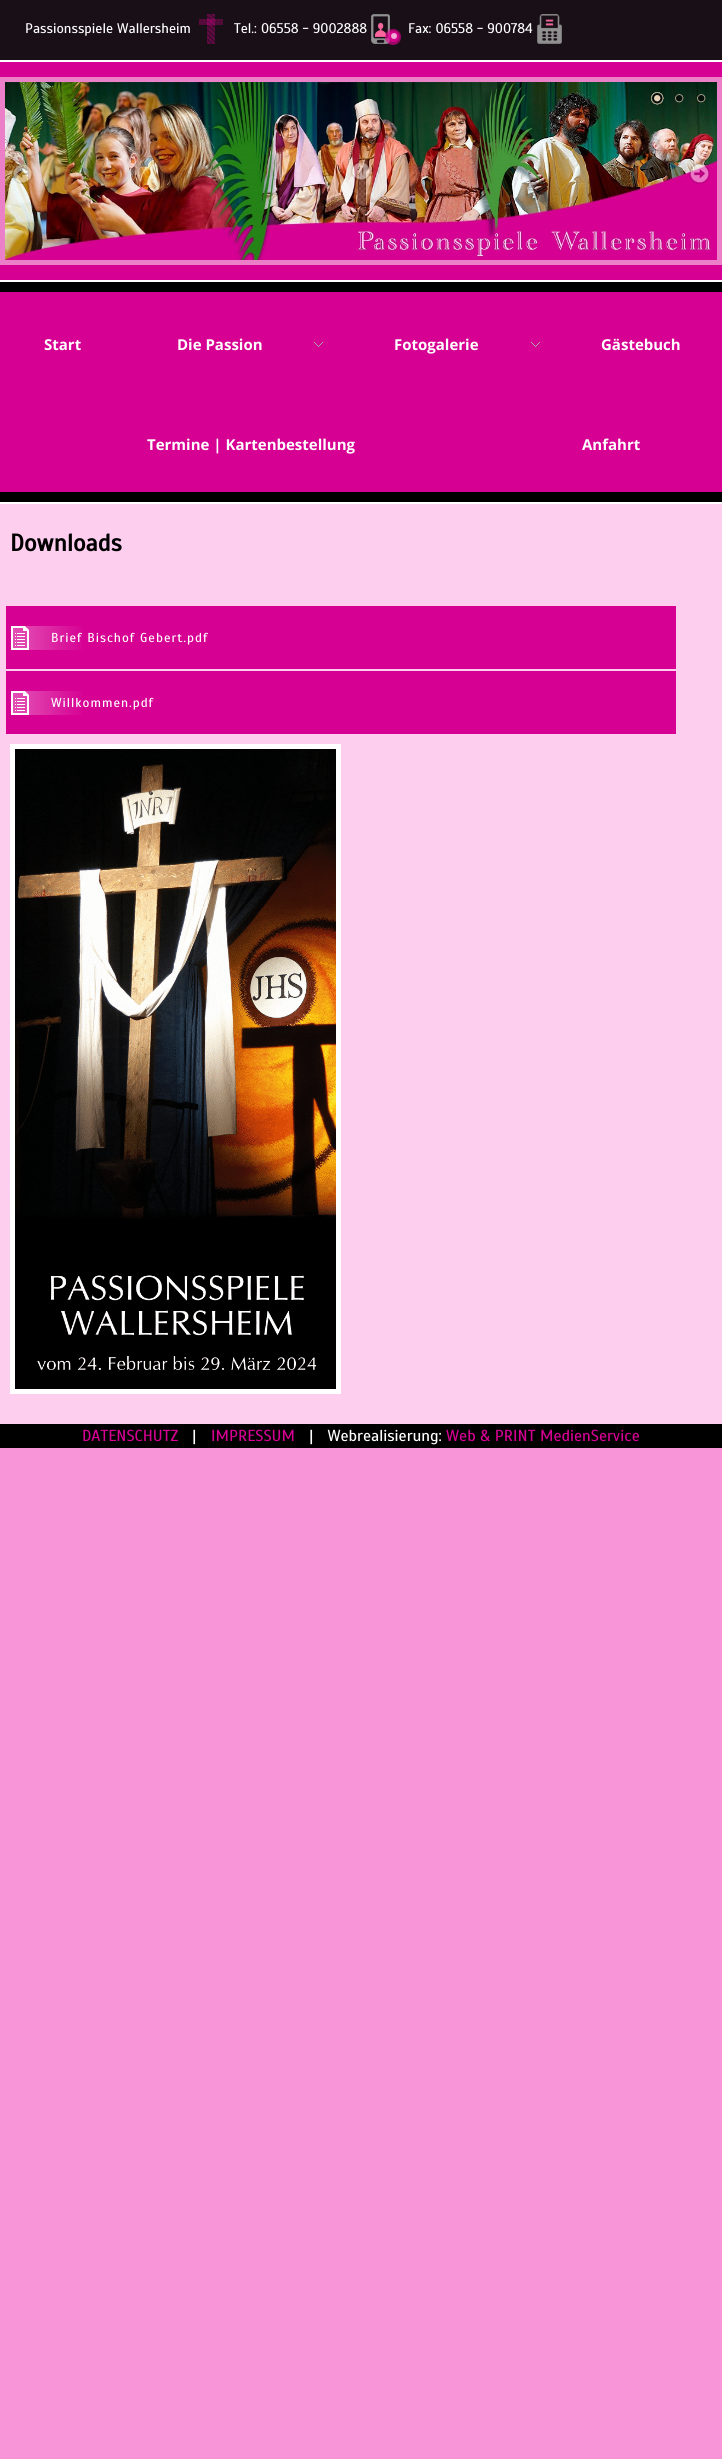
#include <cairo.h>
#include <math.h>
#include <stddef.h>


static void set_color(cairo_t *cr, unsigned color) {
    cairo_set_source_rgb(cr, (color >> 16) / 255.0, (color >> 8 & 255) / 255.0, (color & 255) / 255.0);
}

static void draw_text(cairo_t *cr, double x, double y, const char *s, const char *family, double size, int italic, int bold, unsigned color) {
    cairo_select_font_face(cr, family, italic ? CAIRO_FONT_SLANT_ITALIC : CAIRO_FONT_SLANT_NORMAL,
        bold ? CAIRO_FONT_WEIGHT_BOLD : CAIRO_FONT_WEIGHT_NORMAL);
    cairo_set_font_size(cr, size);
    set_color(cr, color);
    cairo_move_to(cr, x, y);
    cairo_show_text(cr, s);
}

static void draw_spaced(cairo_t *cr, double x, double y, const char *s, double letter, double word) {
    cairo_move_to(cr, x, y);
    while (*s) {
        char ch[5] = {0};
        int n = 0;
        do ch[n++] = *s++; while ((*s & 0xC0) == 0x80);
        cairo_show_text(cr, ch);
        cairo_rel_move_to(cr, letter + word * (*ch == ' '), 0);
    }
}

static void fill_rect(cairo_t *cr, double x, double y, double w, double h, unsigned color) {
    set_color(cr, color);
    cairo_rectangle(cr, x, y, w, h);
    cairo_fill(cr);
}

static void draw_image(cairo_t *cr, const char *path, double x, double y, double w, double h) {
    cairo_surface_t *image = cairo_image_surface_create_from_png(path);
    cairo_save(cr);
    cairo_set_source_surface(cr, image, x, y);
    cairo_rectangle(cr, x, y, w, h);
    cairo_fill(cr);
    cairo_restore(cr);
    cairo_surface_destroy(image);
}

int main(void) {
    cairo_surface_t *surface = cairo_image_surface_create(CAIRO_FORMAT_RGB24, 722, 2459);
    cairo_t *cr = cairo_create(surface);
    cairo_font_options_t *options = cairo_font_options_create();
    cairo_font_options_set_hint_metrics(options, CAIRO_HINT_METRICS_OFF);
    cairo_font_options_set_hint_style(options, CAIRO_HINT_STYLE_NONE);
    cairo_set_font_options(cr, options);
    cairo_set_miter_limit(cr, 4);
    set_color(cr, 0xF795D8);
    cairo_paint(cr);
    fill_rect(cr, 0, 0, 722, 60, 0x190F16);
    draw_text(cr, 25, 33, "Passionsspiele Wallersheim", "Scada", 14, 0, 0, 0xFFFFFF);
    draw_image(cr, "assets/img1.png", 199, 14, 24, 30);
    draw_text(cr, 234, 33, "Tel.: 06558 - 9002888", "Scada", 14, 0, 0, 0xFFFFFF);
    draw_image(cr, "assets/img2.png", 371, 14, 30, 31);
    draw_text(cr, 408, 33, "Fax: 06558 - 900784", "Scada", 14, 0, 0, 0xFFFFFF);
    draw_image(cr, "assets/img3.png", 537, 14, 25, 30);
    fill_rect(cr, 0, 62, 722, 218, 0xD60093);
    fill_rect(cr, 0, 60, 722, 2, 0xFFFFFF);
    fill_rect(cr, 0, 280, 722, 2, 0xFFFFFF);
    cairo_rectangle(cr, 2.5, 79.5, 717, 183);
    set_color(cr, 0xEB80C9);
    cairo_set_line_width(cr, 5);
    cairo_stroke(cr);
    draw_image(cr, "assets/img4.png", 5, 82, 712, 178);
    draw_image(cr, "assets/img5.png", 650, 92, 14, 13);
    draw_image(cr, "assets/img6.png", 675, 94, 9, 9);
    draw_image(cr, "assets/img7.png", 697, 94, 9, 9);
    draw_image(cr, "assets/img8.png", 12, 163, 22, 21);
    draw_image(cr, "assets/img9.png", 350, 161, 22, 20);
    draw_image(cr, "assets/img10.png", 688, 163, 23, 21);
    fill_rect(cr, 0, 282, 722, 220, 0x000000);
    fill_rect(cr, 0, 502, 722, 2, 0xFFFFFF);
    fill_rect(cr, 0, 292, 123, 100, 0xD60093);
    draw_text(cr, 44, 350, "Start", "Open Sans", 15, 0, 1, 0xFFFFFF);
    fill_rect(cr, 123, 292, 216, 100, 0xD60093);
    draw_image(cr, "assets/img11.png", 314, 342, 9, 5);
    draw_text(cr, 177, 350, "Die Passion", "Open Sans", 15, 0, 1, 0xFFFFFF);
    fill_rect(cr, 339, 292, 217, 100, 0xD60093);
    draw_image(cr, "assets/img11.png", 531, 342, 9, 5);
    draw_text(cr, 394, 350, "Fotogalerie", "Open Sans", 15, 0, 1, 0xFFFFFF);
    fill_rect(cr, 556, 292, 166, 100, 0xD60093);
    draw_text(cr, 601, 350, "Gästebuch", "Open Sans", 15, 0, 1, 0xFFFFFF);
    fill_rect(cr, 0, 392, 498, 100, 0xD60093);
    draw_text(cr, 147, 450, "Termine | Kartenbestellung", "Open Sans", 15, 0, 1, 0xFFFFFF);
    fill_rect(cr, 498, 392, 224, 100, 0xD60093);
    draw_text(cr, 582, 450, "Anfahrt", "Open Sans", 15, 0, 1, 0xFFFFFF);
    fill_rect(cr, 0, 504, 722, 920, 0xFECEEF);
    draw_text(cr, 10, 551, "Downloads", "Scada", 24, 0, 1, 0x000000);
    fill_rect(cr, 6, 606, 670, 63, 0xD60093);
    draw_image(cr, "assets/img12.png", 11, 626, 71, 24);
    cairo_select_font_face(cr, "Scada", CAIRO_FONT_SLANT_NORMAL, CAIRO_FONT_WEIGHT_NORMAL);
    cairo_set_font_size(cr, 13);
    set_color(cr, 0xFFFFFF);
    draw_spaced(cr, 51, 642, "Brief Bischof Gebert.pdf", 1, 0);
    fill_rect(cr, 6, 671, 670, 63, 0xD60093);
    draw_image(cr, "assets/img12.png", 11, 691, 71, 24);
    set_color(cr, 0xFFFFFF);
    draw_spaced(cr, 51, 707, "Willkommen.pdf", 1, 0);
    cairo_rectangle(cr, 12.5, 746.5, 326, 645);
    cairo_stroke(cr);
    draw_image(cr, "assets/img13.png", 15, 749, 321, 640);
    fill_rect(cr, 0, 1424, 722, 24, 0x000000);
    draw_text(cr, 82, 1441, "DATENSCHUTZ", "Scada", 16, 0, 0, 0xD60093);
    draw_text(cr, 192, 1441, "|", "Scada", 16, 0, 0, 0xFFFFFF);
    draw_text(cr, 211, 1441, "IMPRESSUM", "Scada", 16, 0, 0, 0xD60093);
    draw_text(cr, 309, 1441, "|   Webrealisierung:", "Scada", 16, 0, 0, 0xFFFFFF);
    draw_text(cr, 446, 1441, "Web & PRINT MedienService", "Scada", 16, 0, 0, 0xD60093);
    cairo_surface_write_to_png(surface, "output.png");
    cairo_font_options_destroy(options);
    cairo_destroy(cr);
    cairo_surface_destroy(surface);
    return 0;
}
